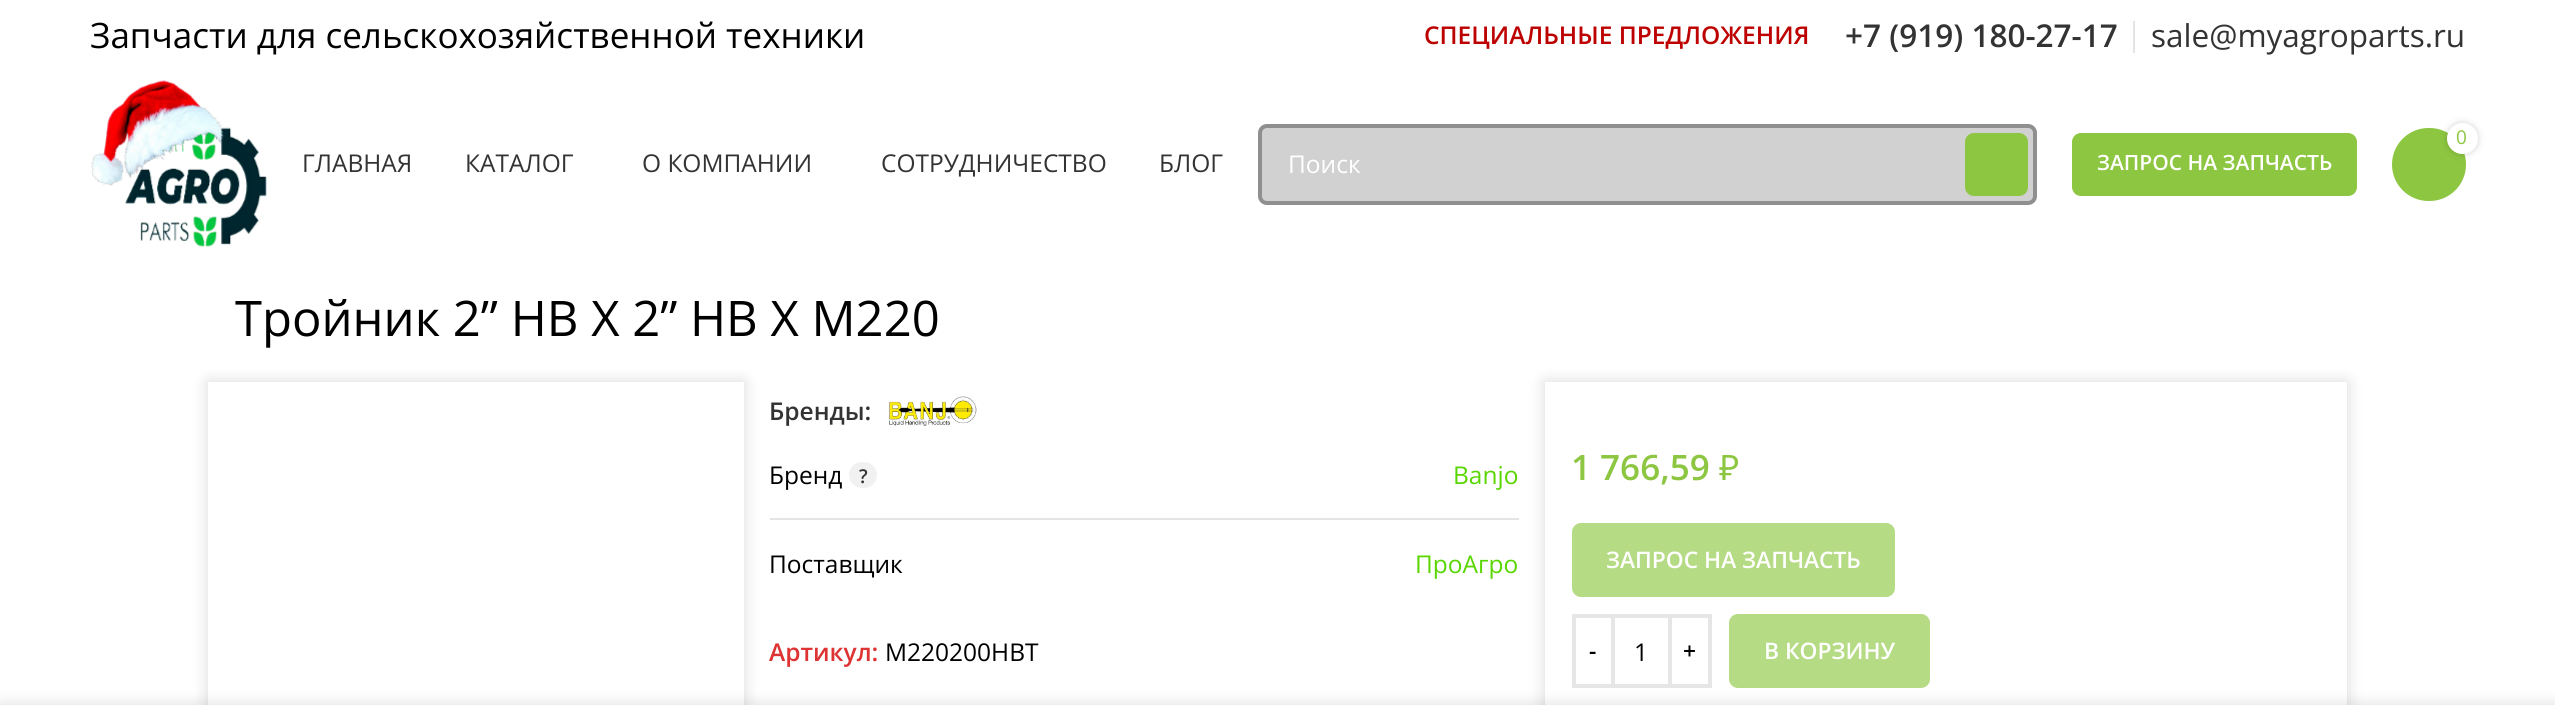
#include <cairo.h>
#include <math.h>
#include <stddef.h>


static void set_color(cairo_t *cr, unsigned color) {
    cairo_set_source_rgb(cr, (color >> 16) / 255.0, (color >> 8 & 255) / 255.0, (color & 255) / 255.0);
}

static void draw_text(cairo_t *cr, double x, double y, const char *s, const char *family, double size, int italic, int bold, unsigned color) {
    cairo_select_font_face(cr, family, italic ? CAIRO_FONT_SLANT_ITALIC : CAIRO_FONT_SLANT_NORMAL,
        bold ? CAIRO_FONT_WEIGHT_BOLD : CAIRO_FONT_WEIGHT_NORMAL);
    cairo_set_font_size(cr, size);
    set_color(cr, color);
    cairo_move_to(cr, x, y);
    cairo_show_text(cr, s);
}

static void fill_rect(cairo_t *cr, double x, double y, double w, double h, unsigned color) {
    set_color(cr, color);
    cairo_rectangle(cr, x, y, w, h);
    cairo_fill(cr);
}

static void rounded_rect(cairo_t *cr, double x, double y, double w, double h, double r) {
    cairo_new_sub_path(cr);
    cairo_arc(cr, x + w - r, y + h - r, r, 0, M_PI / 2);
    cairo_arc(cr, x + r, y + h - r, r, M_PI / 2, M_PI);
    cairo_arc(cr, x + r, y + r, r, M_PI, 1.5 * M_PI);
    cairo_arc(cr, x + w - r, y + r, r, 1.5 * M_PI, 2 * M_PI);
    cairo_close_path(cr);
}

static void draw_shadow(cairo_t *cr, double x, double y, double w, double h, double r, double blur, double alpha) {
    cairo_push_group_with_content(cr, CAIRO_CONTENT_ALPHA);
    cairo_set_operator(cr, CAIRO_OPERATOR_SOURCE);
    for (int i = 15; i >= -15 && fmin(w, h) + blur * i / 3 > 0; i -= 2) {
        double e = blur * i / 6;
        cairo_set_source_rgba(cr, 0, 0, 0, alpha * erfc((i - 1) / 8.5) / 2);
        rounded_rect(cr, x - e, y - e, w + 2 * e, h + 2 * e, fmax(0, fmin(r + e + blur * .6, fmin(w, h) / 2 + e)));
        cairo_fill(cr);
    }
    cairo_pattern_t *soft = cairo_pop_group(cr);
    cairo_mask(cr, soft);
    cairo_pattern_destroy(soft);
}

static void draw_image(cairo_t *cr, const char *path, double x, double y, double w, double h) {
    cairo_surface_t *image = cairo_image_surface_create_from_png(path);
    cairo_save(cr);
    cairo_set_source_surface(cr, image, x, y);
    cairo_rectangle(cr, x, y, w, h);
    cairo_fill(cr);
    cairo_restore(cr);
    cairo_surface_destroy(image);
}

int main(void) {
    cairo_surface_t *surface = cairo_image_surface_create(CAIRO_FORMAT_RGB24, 2555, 705);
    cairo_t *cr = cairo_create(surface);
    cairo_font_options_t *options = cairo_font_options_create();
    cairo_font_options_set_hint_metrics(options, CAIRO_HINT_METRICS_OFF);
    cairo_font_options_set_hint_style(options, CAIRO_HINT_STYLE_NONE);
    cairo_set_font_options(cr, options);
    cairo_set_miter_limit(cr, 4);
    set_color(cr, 0xFFFFFF);
    cairo_paint(cr);
    draw_text(cr, 90, 48, "Запчасти для сельскохозяйственной техники", "Open Sans", 35, 0, 0, 0x000000);
    draw_text(cr, 1424, 44, "СПЕЦИАЛЬНЫЕ ПРЕДЛОЖЕНИЯ", "Open Sans SemiBold", 24.5, 0, 0, 0xBD0000);
    draw_text(cr, 1845, 47, "+7 (919) 180-27-17", "Open Sans SemiBold", 31.5, 0, 0, 0x333333);
    fill_rect(cr, 2133, 21, 2, 32, 0xE4E4E4);
    draw_text(cr, 2151, 47, "sale@myagroparts.ru", "Open Sans", 31.5, 0, 0, 0x333333);
    draw_image(cr, "assets/img1.png", 91, 80, 176, 167);
    draw_text(cr, 302, 172, "ГЛАВНАЯ", "Open Sans", 24.5, 0, 0, 0x333333);
    draw_text(cr, 465, 172, "КАТАЛОГ", "Open Sans", 24.5, 0, 0, 0x333333);
    draw_text(cr, 642, 172, "О КОМПАНИИ", "Open Sans", 24.5, 0, 0, 0x333333);
    draw_text(cr, 881, 172, "СОТРУДНИЧЕСТВО", "Open Sans", 24.5, 0, 0, 0x333333);
    draw_text(cr, 1159, 172, "БЛОГ", "Open Sans", 24.5, 0, 0, 0x333333);
    set_color(cr, 0xD1D1D1);
    rounded_rect(cr, 1258, 124, 779, 81, 9);
    cairo_fill(cr);
    rounded_rect(cr, 1260, 126, 775, 77, 7);
    cairo_set_source_rgba(cr, 0, 0, 0, 0.32);
    cairo_set_line_width(cr, 4);
    cairo_stroke(cr);
    draw_text(cr, 1288, 173, "Поиск", "Open Sans", 24.5, 0, 0, 0xFFFFFF);
    set_color(cr, 0x8DC641);
    rounded_rect(cr, 1965, 133, 63, 63, 9);
    cairo_fill(cr);
    rounded_rect(cr, 2392, 128, 74, 73, 36.5);
    cairo_fill(cr);
    set_color(cr, 0x000000);
    draw_shadow(cr, 2447, 123, 31, 31, 15.5, 3.5, 0.17);
    set_color(cr, 0xFFFFFF);
    cairo_arc(cr, 2462.5, 138.5, 15.5, 0, 2 * M_PI);
    cairo_fill(cr);
    draw_text(cr, 2456, 144, "0", "Open Sans", 19, 0, 0, 0x8DC641);
    rounded_rect(cr, 2072, 133, 285, 63, 9);
    cairo_fill(cr);
    draw_text(cr, 2097, 170, "ЗАПРОС НА ЗАПЧАСТЬ", "Open Sans SemiBold", 21, 0, 0, 0xFFFFFF);
    draw_text(cr, 235, 336, "Тройник 2” HB X 2” HB X M220", "Open Sans", 49, 0, 0, 0x000000);
    cairo_save(cr);
    cairo_set_fill_rule(cr, CAIRO_FILL_RULE_EVEN_ODD);
    cairo_new_path(cr);
    cairo_move_to(cr, 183, 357);
    cairo_line_to(cr, 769, 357);
    cairo_line_to(cr, 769, 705);
    cairo_line_to(cr, 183, 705);
    cairo_close_path(cr);
    cairo_move_to(cr, 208, 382);
    cairo_line_to(cr, 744, 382);
    cairo_line_to(cr, 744, 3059);
    cairo_line_to(cr, 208, 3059);
    cairo_close_path(cr);
    cairo_clip(cr);
    set_color(cr, 0x000000);
    draw_shadow(cr, 208, 382, 536, 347, 0, 8, 0.15);
    cairo_restore(cr);
    draw_text(cr, 769, 420, "Бренды:", "Open Sans SemiBold", 24.5, 0, 0, 0x333333);
    draw_image(cr, "assets/img2.png", 889, 396, 88, 30);
    fill_rect(cr, 770, 518, 749, 2, 0xE4E4E4);
    draw_text(cr, 769, 484, "Бренд", "Open Sans", 24.5, 0, 0, 0x000000);
    set_color(cr, 0xF1F1F1);
    rounded_rect(cr, 849, 462, 28, 26, 13);
    cairo_fill(cr);
    draw_text(cr, 859, 483, "?", "Open Sans SemiBold", 19, 0, 0, 0x333333);
    draw_text(cr, 1453, 484, "Banjo", "Open Sans", 24.5, 0, 0, 0x59D600);
    draw_text(cr, 769, 573, "Поставщик", "Open Sans", 24.5, 0, 0, 0x000000);
    draw_text(cr, 1415, 573, "ПроАгро", "Open Sans", 24.5, 0, 0, 0x59D600);
    draw_text(cr, 769, 661, "Артикул:", "Open Sans SemiBold", 24.5, 0, 0, 0xDD3333);
    draw_text(cr, 885, 661, "M220200HBT", "Open Sans", 24.5, 0, 0, 0x000000);
    cairo_save(cr);
    cairo_set_fill_rule(cr, CAIRO_FILL_RULE_EVEN_ODD);
    cairo_new_path(cr);
    cairo_move_to(cr, 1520, 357);
    cairo_line_to(cr, 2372, 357);
    cairo_line_to(cr, 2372, 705);
    cairo_line_to(cr, 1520, 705);
    cairo_close_path(cr);
    cairo_move_to(cr, 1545, 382);
    cairo_line_to(cr, 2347, 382);
    cairo_line_to(cr, 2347, 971);
    cairo_line_to(cr, 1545, 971);
    cairo_close_path(cr);
    cairo_clip(cr);
    set_color(cr, 0x000000);
    draw_shadow(cr, 1545, 382, 802, 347, 0, 8, 0.15);
    cairo_restore(cr);
    draw_text(cr, 1571, 480, "1 766,59", "Open Sans SemiBold", 35, 0, 0, 0x8DC641);
    draw_text(cr, 1719, 480, "₽", "Noto Sans", 35, 0, 0, 0x8DC641);
    set_color(cr, 0xB6DB85);
    rounded_rect(cr, 1572, 523, 323, 74, 9);
    cairo_fill(cr);
    draw_text(cr, 1606, 568, "ЗАПРОС НА ЗАПЧАСТЬ", "Open Sans SemiBold", 22.75, 0, 0, 0xFFFFFF);
    cairo_rectangle(cr, 1574, 616, 39, 70);
    set_color(cr, 0xE6E6E6);
    cairo_stroke(cr);
    draw_text(cr, 1589, 659, "-", "Open Sans SemiBold", 22.75, 0, 0, 0x000000);
    fill_rect(cr, 1615, 614, 53, 4, 0xE6E6E6);
    fill_rect(cr, 1615, 684, 53, 4, 0xE6E6E6);
    draw_text(cr, 1634, 661, "1", "Open Sans", 24.5, 0, 0, 0x000000);
    cairo_rectangle(cr, 1670, 616, 40, 70);
    set_color(cr, 0xE6E6E6);
    cairo_stroke(cr);
    draw_text(cr, 1683, 659, "+", "Open Sans SemiBold", 22.75, 0, 0, 0x000000);
    set_color(cr, 0xB6DB85);
    rounded_rect(cr, 1729, 614, 201, 74, 9);
    cairo_fill(cr);
    draw_text(cr, 1764, 659, "В КОРЗИНУ", "Open Sans SemiBold", 22.75, 0, 0, 0xFFFFFF);
    set_color(cr, 0x000000);
    draw_shadow(cr, 0, 705, 2555, 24, 0, 8, 0.14);
    cairo_surface_write_to_png(surface, "output.png");
    cairo_font_options_destroy(options);
    cairo_destroy(cr);
    cairo_surface_destroy(surface);
    return 0;
}
